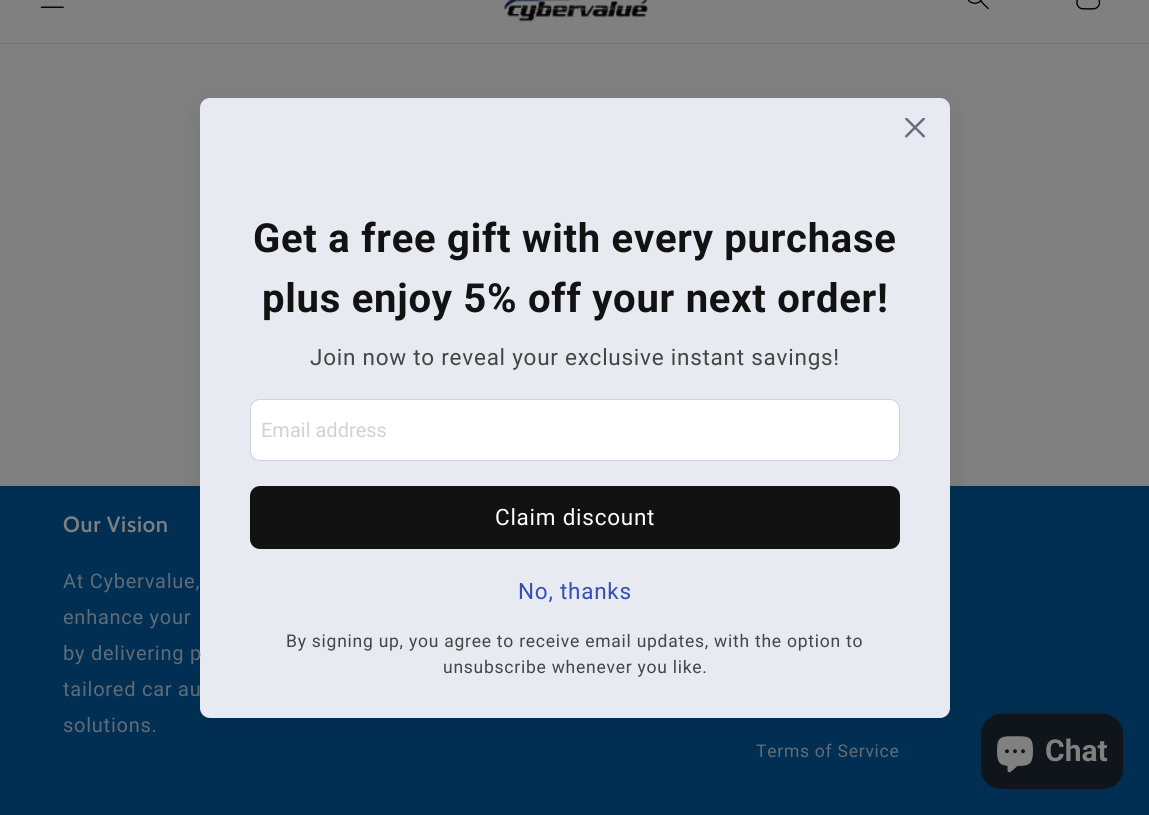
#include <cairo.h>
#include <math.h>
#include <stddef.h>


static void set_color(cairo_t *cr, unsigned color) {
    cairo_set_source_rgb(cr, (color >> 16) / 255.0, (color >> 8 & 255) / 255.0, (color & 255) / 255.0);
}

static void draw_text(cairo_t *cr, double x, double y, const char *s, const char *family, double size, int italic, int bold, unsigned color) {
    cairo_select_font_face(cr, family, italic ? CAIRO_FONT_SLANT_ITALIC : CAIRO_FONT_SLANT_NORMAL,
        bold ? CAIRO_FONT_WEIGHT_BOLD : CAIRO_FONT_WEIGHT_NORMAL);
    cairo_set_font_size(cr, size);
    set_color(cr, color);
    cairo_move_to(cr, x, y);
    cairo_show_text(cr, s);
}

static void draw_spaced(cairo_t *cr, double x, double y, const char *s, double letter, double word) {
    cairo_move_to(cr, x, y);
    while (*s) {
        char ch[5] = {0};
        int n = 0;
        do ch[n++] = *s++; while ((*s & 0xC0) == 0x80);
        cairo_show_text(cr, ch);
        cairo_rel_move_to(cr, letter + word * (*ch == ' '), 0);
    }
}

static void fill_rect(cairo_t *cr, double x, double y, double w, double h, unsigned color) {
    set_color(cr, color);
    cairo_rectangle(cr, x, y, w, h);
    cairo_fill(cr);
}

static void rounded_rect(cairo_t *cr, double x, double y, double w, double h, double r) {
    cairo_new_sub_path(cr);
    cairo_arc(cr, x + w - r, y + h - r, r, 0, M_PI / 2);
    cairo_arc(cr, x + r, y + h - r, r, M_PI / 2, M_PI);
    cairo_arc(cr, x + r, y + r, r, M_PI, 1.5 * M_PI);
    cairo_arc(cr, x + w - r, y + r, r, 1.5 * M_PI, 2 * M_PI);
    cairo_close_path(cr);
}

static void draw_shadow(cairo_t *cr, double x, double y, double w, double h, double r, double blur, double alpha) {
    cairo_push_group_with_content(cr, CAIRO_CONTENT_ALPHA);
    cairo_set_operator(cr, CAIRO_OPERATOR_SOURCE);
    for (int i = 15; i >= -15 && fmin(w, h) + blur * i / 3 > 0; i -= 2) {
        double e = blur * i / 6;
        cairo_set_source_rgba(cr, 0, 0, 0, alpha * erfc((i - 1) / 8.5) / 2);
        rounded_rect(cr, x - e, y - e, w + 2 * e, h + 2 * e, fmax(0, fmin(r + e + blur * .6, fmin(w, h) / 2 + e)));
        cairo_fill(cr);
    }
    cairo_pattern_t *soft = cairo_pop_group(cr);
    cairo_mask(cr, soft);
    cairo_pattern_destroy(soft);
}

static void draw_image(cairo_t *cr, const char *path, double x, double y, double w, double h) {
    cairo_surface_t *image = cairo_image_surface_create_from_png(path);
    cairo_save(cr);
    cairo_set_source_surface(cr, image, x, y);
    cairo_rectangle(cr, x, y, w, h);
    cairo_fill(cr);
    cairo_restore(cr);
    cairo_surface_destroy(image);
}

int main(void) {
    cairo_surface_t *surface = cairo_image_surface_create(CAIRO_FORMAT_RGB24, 1149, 815);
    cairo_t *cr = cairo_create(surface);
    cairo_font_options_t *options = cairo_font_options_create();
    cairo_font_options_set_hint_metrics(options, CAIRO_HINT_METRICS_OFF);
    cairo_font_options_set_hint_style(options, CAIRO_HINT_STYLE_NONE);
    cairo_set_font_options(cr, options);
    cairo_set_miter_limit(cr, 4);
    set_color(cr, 0x808080);
    cairo_paint(cr);
    fill_rect(cr, 0, 43, 1149, 1, 0x767676);
    draw_image(cr, "assets/img1.png", 40, 6, 24, 2);
    draw_image(cr, "assets/img2.png", 503, 0, 145, 22);
    draw_image(cr, "assets/img3.png", 967, 0, 22, 10);
    draw_image(cr, "assets/img4.png", 1076, 0, 25, 10);
    fill_rect(cr, 0, 486, 1149, 329, 0x012F53);
    set_color(cr, 0x000000);
    draw_shadow(cr, 981, 714, 142, 75, 20, 3, 0.15);
    set_color(cr, 0x10151B);
    rounded_rect(cr, 981, 714, 142, 75, 20);
    cairo_fill(cr);
    cairo_save(cr);
    cairo_rectangle(cr, 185, 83, 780, 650);
    cairo_clip(cr);
    set_color(cr, 0x121127);
    draw_shadow(cr, 200, 108, 750, 620, 10, 12.5, 0.1);
    cairo_restore(cr);
    set_color(cr, 0xE7EAF1);
    rounded_rect(cr, 200, 98, 750, 620, 10);
    cairo_fill(cr);
    draw_image(cr, "assets/img5.png", 905, 118, 20, 20);
    cairo_select_font_face(cr, "Roboto", CAIRO_FONT_SLANT_NORMAL, CAIRO_FONT_WEIGHT_BOLD);
    cairo_set_font_size(cr, 40);
    set_color(cr, 0x121212);
    draw_spaced(cr, 253, 252, "Get a free gift with every purchase", 0.75, 0);
    draw_spaced(cr, 262, 312, "plus enjoy 5% off your next order!", 0.75, 0);
    cairo_select_font_face(cr, "Roboto", CAIRO_FONT_SLANT_NORMAL, CAIRO_FONT_WEIGHT_NORMAL);
    cairo_set_font_size(cr, 22.5);
    set_color(cr, 0x454545);
    draw_spaced(cr, 310, 365, "Join now to reveal your exclusive instant savings!", 0.75, 0);
    set_color(cr, 0xFFFFFF);
    rounded_rect(cr, 250.5, 399.5, 649, 61, 9.5);
    cairo_fill_preserve(cr);
    set_color(cr, 0xD1D1DB);
    cairo_set_line_width(cr, 1);
    cairo_stroke(cr);
    draw_text(cr, 261, 437, "Email address", "Roboto", 20, 0, 0, 0xD1D1DB);
    set_color(cr, 0x121212);
    rounded_rect(cr, 250, 486, 650, 63, 10);
    cairo_fill(cr);
    cairo_set_font_size(cr, 22.5);
    set_color(cr, 0xFFFFFF);
    draw_spaced(cr, 495, 525, "Claim discount", 0.75, 0);
    set_color(cr, 0x334FB4);
    draw_spaced(cr, 518, 599, "No, thanks", 0.75, 0);
    cairo_set_font_size(cr, 17.5);
    set_color(cr, 0x454545);
    draw_spaced(cr, 286, 647, "By signing up, you agree to receive email updates, with the option to", 0.75, 0);
    draw_spaced(cr, 443, 673, "unsubscribe whenever you like.", 0.75, 0);
    cairo_select_font_face(cr, "Cabin SemiBold", CAIRO_FONT_SLANT_NORMAL, CAIRO_FONT_WEIGHT_NORMAL);
    cairo_set_font_size(cr, 22);
    set_color(cr, 0x808080);
    draw_spaced(cr, 63, 532, "Our Vision", 0.75, 0);
    cairo_select_font_face(cr, "Roboto", CAIRO_FONT_SLANT_NORMAL, CAIRO_FONT_WEIGHT_NORMAL);
    cairo_set_font_size(cr, 20);
    set_color(cr, 0x606C75);
    draw_spaced(cr, 63, 588, "At Cybervalue,", 0.75, 0);
    draw_spaced(cr, 63, 624, "enhance your", 0.75, 0);
    draw_spaced(cr, 63, 660, "by delivering p", 0.75, 0);
    draw_spaced(cr, 63, 696, "tailored car au", 0.75, 0);
    draw_spaced(cr, 63, 732, "solutions.", 0.75, 0);
    cairo_set_font_size(cr, 17.5);
    draw_spaced(cr, 756, 757, "Terms of Service", 0.75, 0);
    draw_image(cr, "assets/img6.png", 997, 736, 36, 37);
    draw_text(cr, 1045, 761, "Chat", "Roboto", 30, 0, 1, 0x808080);
    cairo_surface_write_to_png(surface, "output.png");
    cairo_font_options_destroy(options);
    cairo_destroy(cr);
    cairo_surface_destroy(surface);
    return 0;
}
